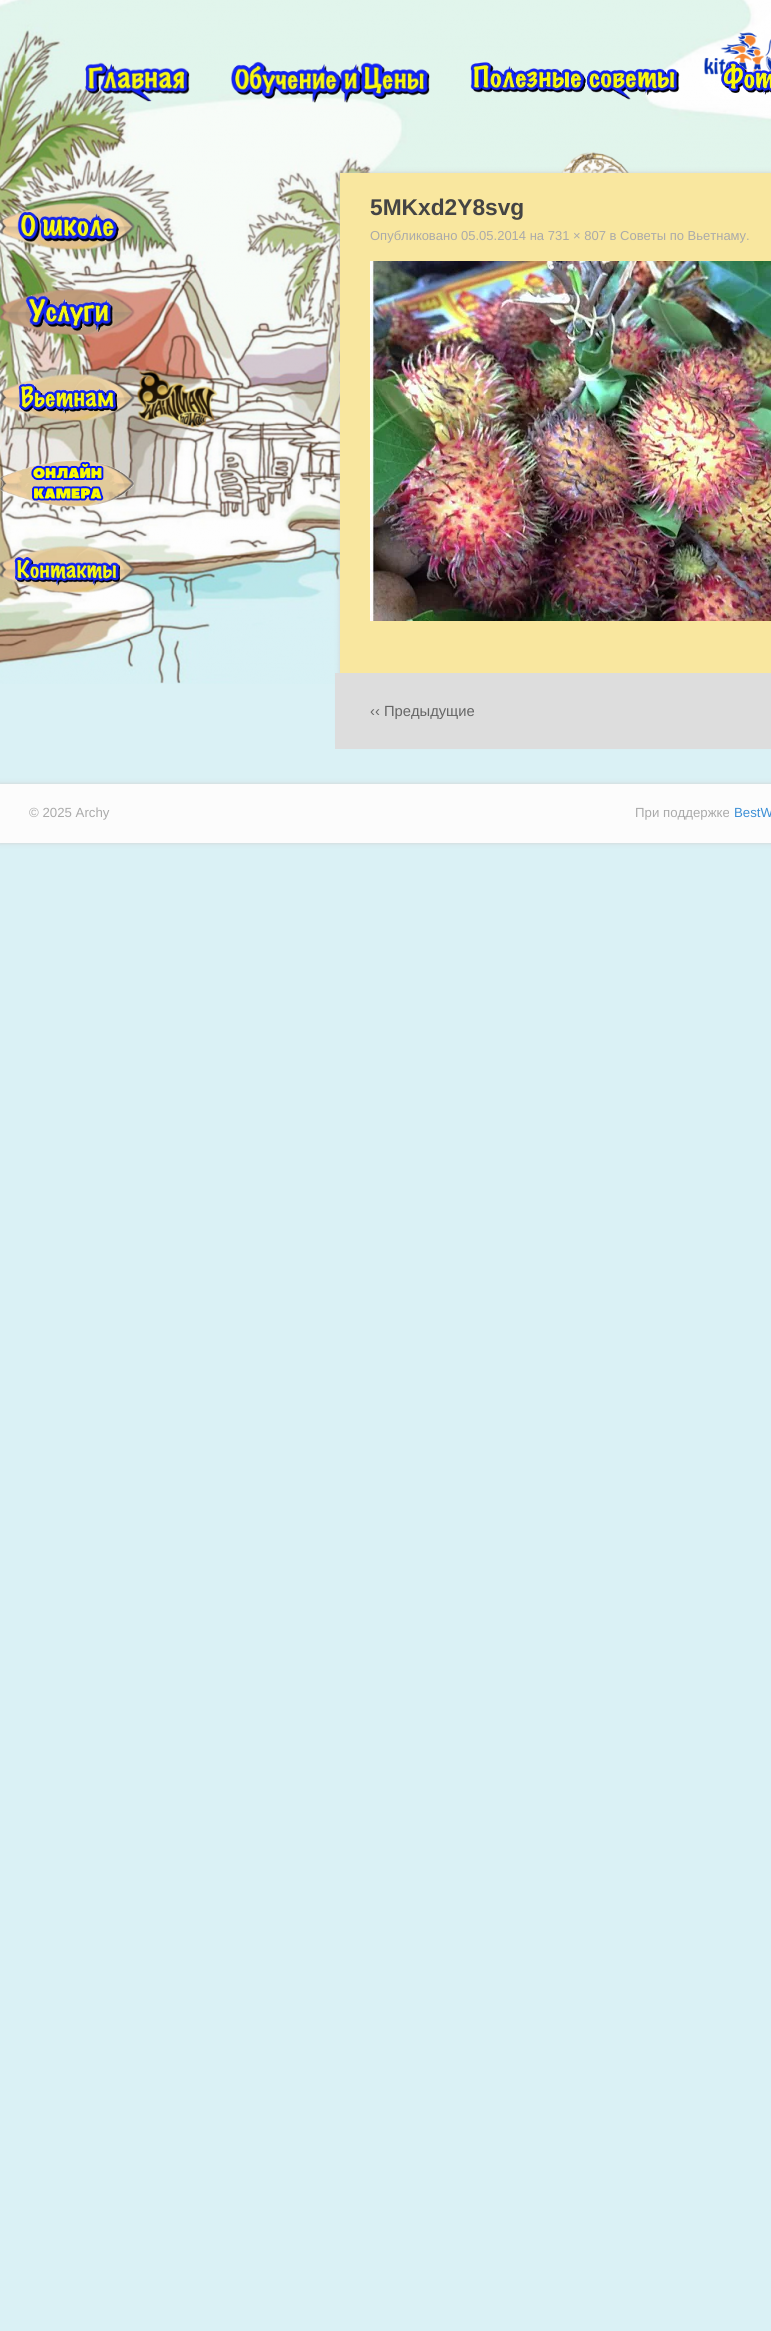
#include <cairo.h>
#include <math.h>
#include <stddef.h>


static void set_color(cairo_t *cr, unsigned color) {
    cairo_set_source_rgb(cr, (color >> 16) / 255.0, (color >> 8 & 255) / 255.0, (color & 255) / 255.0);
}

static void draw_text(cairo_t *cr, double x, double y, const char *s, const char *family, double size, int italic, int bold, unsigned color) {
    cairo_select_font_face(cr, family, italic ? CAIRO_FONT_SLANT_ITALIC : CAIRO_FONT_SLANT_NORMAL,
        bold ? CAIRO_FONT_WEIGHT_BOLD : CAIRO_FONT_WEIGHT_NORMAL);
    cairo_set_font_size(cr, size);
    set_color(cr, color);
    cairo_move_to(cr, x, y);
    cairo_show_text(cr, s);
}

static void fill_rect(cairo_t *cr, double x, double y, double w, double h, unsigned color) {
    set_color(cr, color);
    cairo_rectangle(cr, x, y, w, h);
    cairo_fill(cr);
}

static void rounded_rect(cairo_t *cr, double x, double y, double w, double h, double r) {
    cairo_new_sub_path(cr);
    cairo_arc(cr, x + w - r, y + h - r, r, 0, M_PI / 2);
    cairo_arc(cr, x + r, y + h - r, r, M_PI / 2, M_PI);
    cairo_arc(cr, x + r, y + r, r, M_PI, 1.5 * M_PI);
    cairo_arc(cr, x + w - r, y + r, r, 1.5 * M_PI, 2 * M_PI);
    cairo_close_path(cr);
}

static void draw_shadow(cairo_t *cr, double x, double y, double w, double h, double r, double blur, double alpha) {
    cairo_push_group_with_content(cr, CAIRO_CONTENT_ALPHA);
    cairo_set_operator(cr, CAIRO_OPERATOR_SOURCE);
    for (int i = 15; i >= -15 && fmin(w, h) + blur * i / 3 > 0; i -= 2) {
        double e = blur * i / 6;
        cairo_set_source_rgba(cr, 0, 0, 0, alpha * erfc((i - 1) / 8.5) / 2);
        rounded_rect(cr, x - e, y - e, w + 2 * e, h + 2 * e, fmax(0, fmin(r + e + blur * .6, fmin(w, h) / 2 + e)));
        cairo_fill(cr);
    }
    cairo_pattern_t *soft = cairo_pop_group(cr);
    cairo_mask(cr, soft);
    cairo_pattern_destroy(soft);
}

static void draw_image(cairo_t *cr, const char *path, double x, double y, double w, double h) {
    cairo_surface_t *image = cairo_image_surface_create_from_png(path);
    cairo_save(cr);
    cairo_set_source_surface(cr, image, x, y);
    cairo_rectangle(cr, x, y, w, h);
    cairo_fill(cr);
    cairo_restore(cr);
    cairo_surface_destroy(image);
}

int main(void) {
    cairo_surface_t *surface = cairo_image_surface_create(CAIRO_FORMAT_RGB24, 771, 2331);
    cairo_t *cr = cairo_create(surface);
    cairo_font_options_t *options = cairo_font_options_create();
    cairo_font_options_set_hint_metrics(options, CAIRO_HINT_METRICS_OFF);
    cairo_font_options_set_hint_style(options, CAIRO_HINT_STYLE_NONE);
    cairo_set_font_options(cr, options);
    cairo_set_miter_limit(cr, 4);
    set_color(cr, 0xDAF1F5);
    cairo_paint(cr);
    draw_image(cr, "assets/img1.png", 0, 0, 771, 684);
    draw_image(cr, "assets/img2.png", 85, 62, 105, 40);
    draw_image(cr, "assets/img3.png", 230, 61, 200, 42);
    draw_image(cr, "assets/img4.png", 470, 61, 210, 39);
    draw_image(cr, "assets/img5.png", 721, 61, 50, 34);
    draw_image(cr, "assets/img6.png", 0, 202, 135, 48);
    draw_image(cr, "assets/img7.png", 0, 288, 135, 47);
    draw_image(cr, "assets/img8.png", 0, 373, 135, 48);
    draw_image(cr, "assets/img9.png", 0, 460, 134, 47);
    draw_image(cr, "assets/img10.png", 0, 545, 135, 48);
    set_color(cr, 0xD0D0D0);
    draw_shadow(cr, 340, 173, 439, 571, 0, 2.5, 1);
    fill_rect(cr, 340, 173, 431, 500, 0xF9E79F);
    draw_text(cr, 370, 215, "5MKxd2Y8svg", "Liberation Sans", 22.75, 0, 1, 0x444444);
    draw_text(cr, 370, 240, "Опубликовано 05.05.2014 на 731 × 807 в Советы по Вьетнаму.", "Arimo", 13, 0, 0, 0xAAAAAA);
    draw_image(cr, "assets/img11.png", 370, 261, 401, 360);
    fill_rect(cr, 335, 673, 436, 76, 0xDDDDDD);
    draw_text(cr, 370, 716, "‹‹ Предыдущие", "Arimo", 14.75, 0, 0, 0x666666);
    set_color(cr, 0xD0D0D0);
    draw_shadow(cr, 0, 784, 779, 59, 0, 2.5, 1);
    fill_rect(cr, 0, 784, 771, 59, 0xFCFCFC);
    draw_text(cr, 29, 817, "© 2025 Archy", "Arimo", 13.25, 0, 0, 0xAAAAAA);
    draw_text(cr, 635, 817, "При поддержке", "Arimo", 13.25, 0, 0, 0xAAAAAA);
    draw_text(cr, 734, 817, "BestW", "Arimo", 13.25, 0, 0, 0x3D8FD5);
    cairo_surface_write_to_png(surface, "output.png");
    cairo_font_options_destroy(options);
    cairo_destroy(cr);
    cairo_surface_destroy(surface);
    return 0;
}
